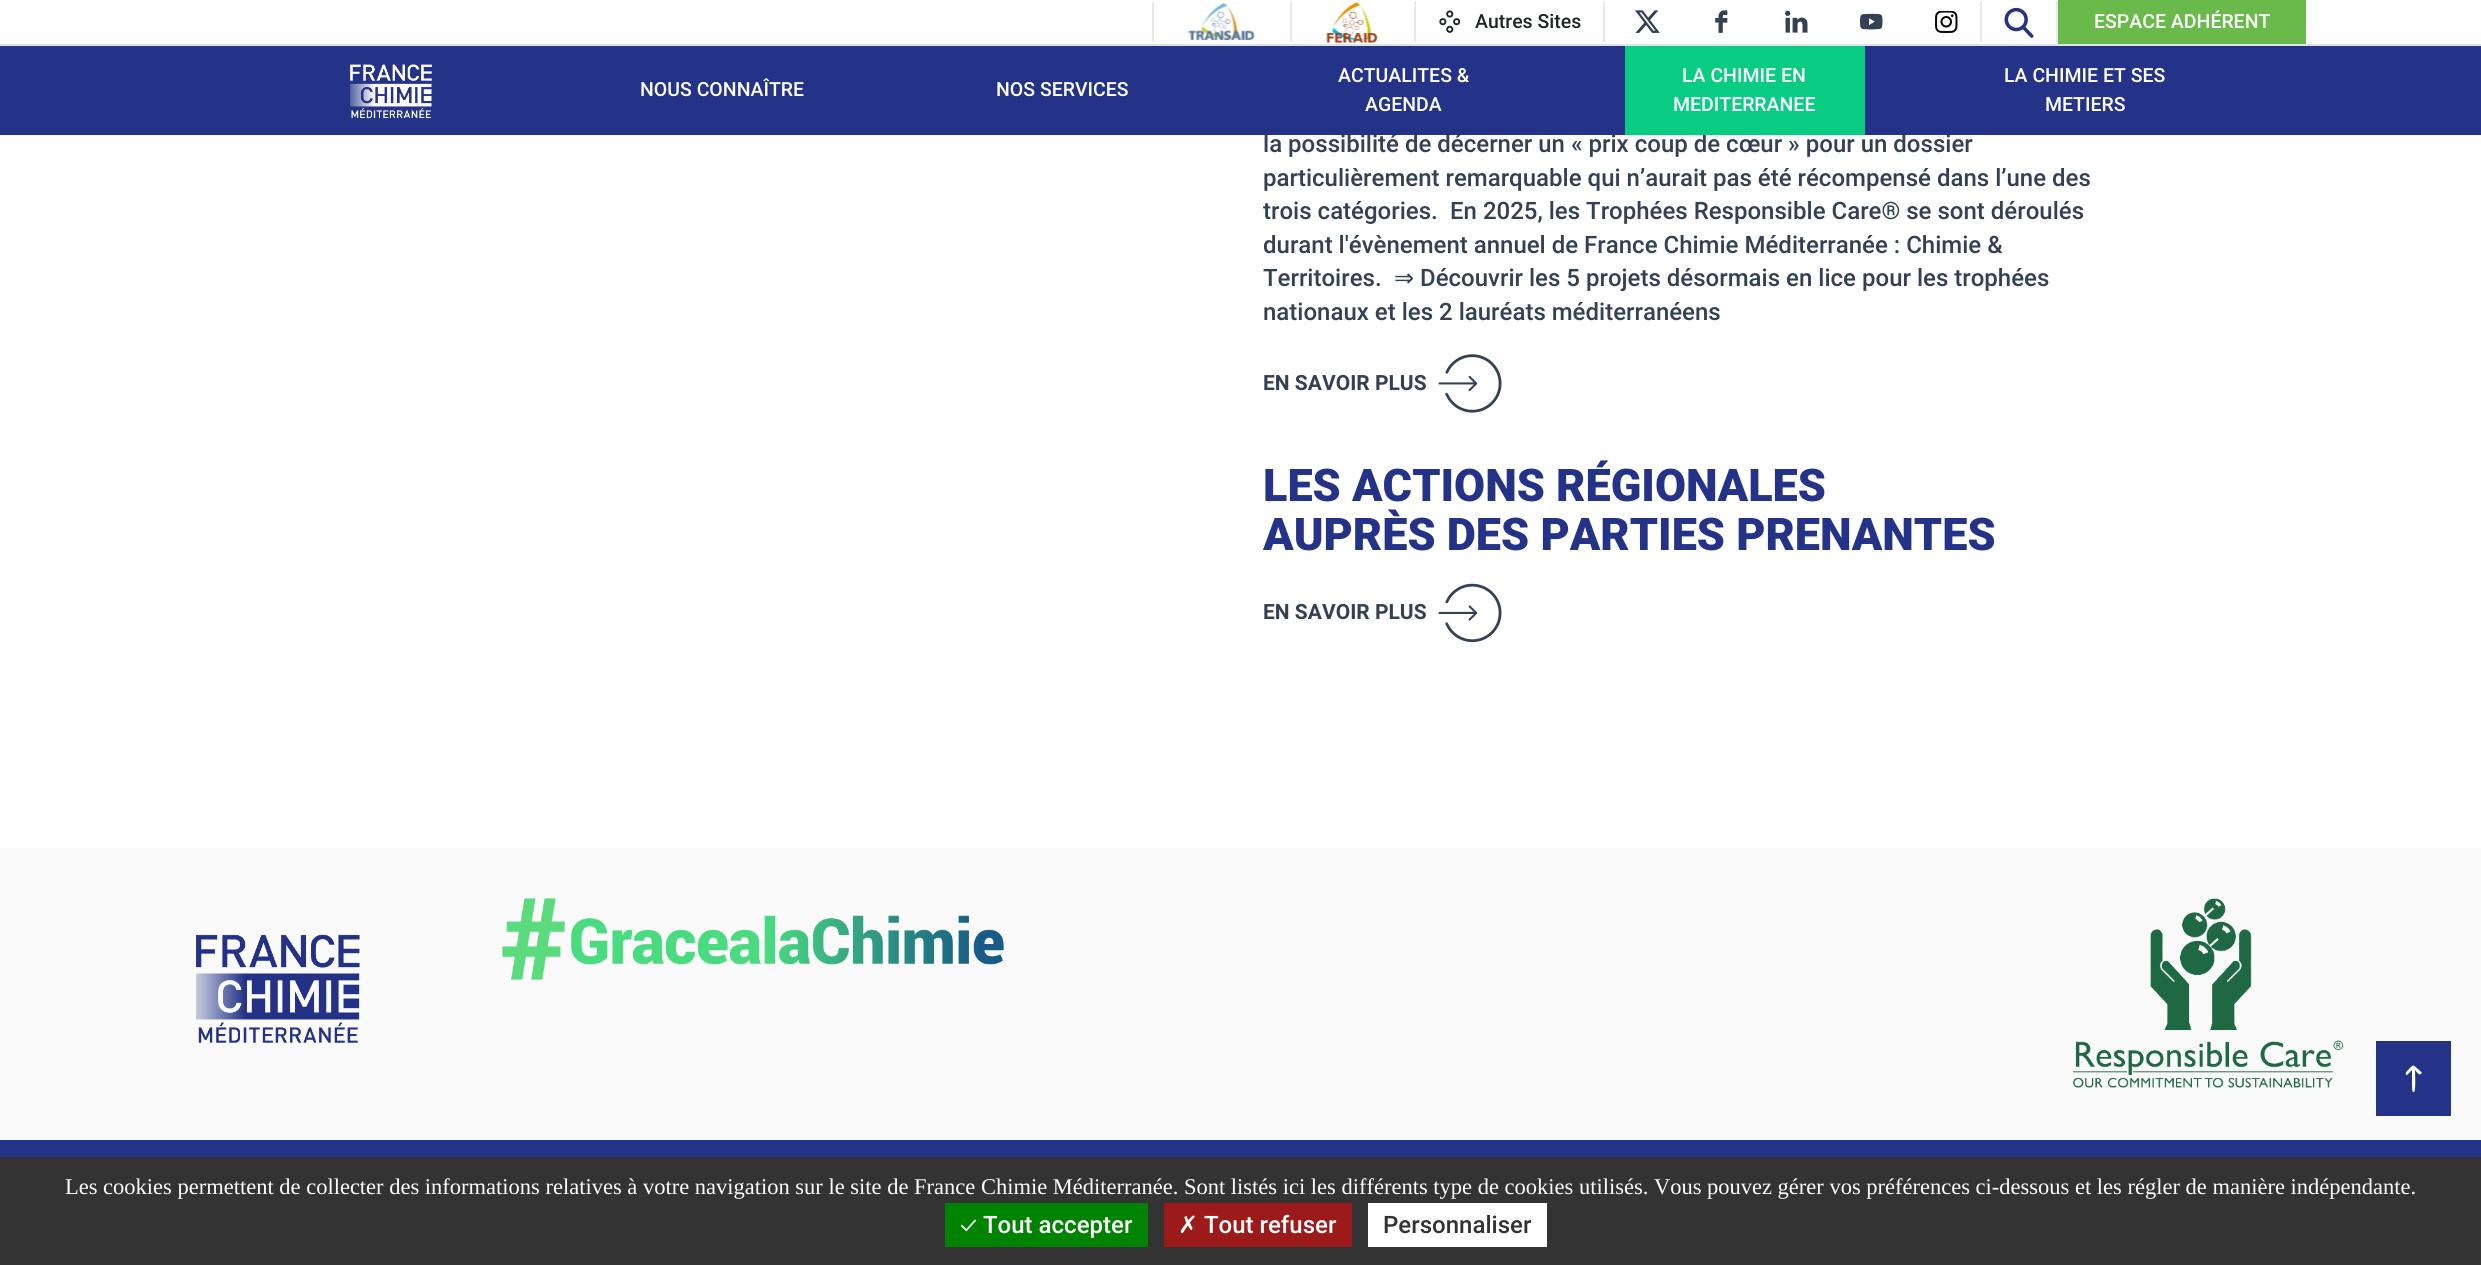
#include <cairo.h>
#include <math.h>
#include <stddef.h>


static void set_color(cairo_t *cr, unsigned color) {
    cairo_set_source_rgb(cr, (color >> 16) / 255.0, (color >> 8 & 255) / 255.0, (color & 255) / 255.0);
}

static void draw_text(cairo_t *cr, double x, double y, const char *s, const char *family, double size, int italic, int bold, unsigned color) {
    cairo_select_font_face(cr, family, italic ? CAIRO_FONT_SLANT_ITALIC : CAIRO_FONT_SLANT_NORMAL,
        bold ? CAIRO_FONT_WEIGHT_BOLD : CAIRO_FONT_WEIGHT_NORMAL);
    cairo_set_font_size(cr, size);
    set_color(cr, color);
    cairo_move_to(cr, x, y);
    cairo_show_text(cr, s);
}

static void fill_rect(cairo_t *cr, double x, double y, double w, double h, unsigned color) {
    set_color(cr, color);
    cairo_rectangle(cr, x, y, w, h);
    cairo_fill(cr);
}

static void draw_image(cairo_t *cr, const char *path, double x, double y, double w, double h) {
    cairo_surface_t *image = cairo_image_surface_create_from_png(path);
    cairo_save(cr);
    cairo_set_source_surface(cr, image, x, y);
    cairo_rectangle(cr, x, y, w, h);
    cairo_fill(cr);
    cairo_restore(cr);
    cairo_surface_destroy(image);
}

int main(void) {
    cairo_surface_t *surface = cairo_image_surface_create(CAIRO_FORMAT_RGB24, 2481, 1265);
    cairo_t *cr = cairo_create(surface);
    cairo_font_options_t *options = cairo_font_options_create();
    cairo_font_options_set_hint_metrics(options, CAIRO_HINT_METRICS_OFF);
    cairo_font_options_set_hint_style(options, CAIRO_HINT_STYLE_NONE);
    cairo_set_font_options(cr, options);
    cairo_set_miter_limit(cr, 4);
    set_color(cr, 0xFFFFFF);
    cairo_paint(cr);
    fill_rect(cr, 0, 44, 2481, 2, 0xDEE2E6);
    cairo_new_path(cr);
    cairo_move_to(cr, 1153.5, 42);
    cairo_line_to(cr, 1153, 40);
    cairo_line_to(cr, 1153, 4);
    cairo_line_to(cr, 1153.5, 1.5);
    cairo_set_line_width(cr, 1.5);
    cairo_stroke(cr);
    draw_image(cr, "assets/img1.png", 1186, 1, 70, 42);
    cairo_new_path(cr);
    cairo_move_to(cr, 1291.5, 42);
    cairo_line_to(cr, 1291, 40);
    cairo_line_to(cr, 1291, 4);
    cairo_line_to(cr, 1291.5, 1.5);
    cairo_stroke(cr);
    draw_image(cr, "assets/img2.png", 1326, 2, 52, 41);
    cairo_new_path(cr);
    cairo_move_to(cr, 1603.5, 1.5);
    cairo_line_to(cr, 1604, 3.5);
    cairo_line_to(cr, 1604, 40);
    cairo_line_to(cr, 1603.5, 42);
    cairo_stroke(cr);
    cairo_new_path(cr);
    cairo_move_to(cr, 1416, 42);
    cairo_line_to(cr, 1415, 40);
    cairo_line_to(cr, 1415, 4);
    cairo_line_to(cr, 1416, 1.5);
    cairo_stroke(cr);
    draw_image(cr, "assets/img3.png", 1439, 10, 22, 23);
    draw_text(cr, 1475, 28, "Autres Sites", "Roboto Medium", 19.5, 0, 0, 0x212529);
    draw_image(cr, "assets/img4.png", 1635, 10, 25, 23);
    draw_image(cr, "assets/img5.png", 1715, 10, 13, 23);
    draw_image(cr, "assets/img6.png", 1785, 10, 23, 23);
    draw_image(cr, "assets/img7.png", 1860, 13, 23, 17);
    draw_image(cr, "assets/img8.png", 1935, 11, 23, 22);
    cairo_new_path(cr);
    cairo_move_to(cr, 2056.5, 1.5);
    cairo_line_to(cr, 2057, 3.5);
    cairo_line_to(cr, 2057, 40);
    cairo_line_to(cr, 2056.5, 42);
    set_color(cr, 0xDEE2E6);
    cairo_stroke(cr);
    cairo_new_path(cr);
    cairo_move_to(cr, 1981.5, 42);
    cairo_line_to(cr, 1981, 40);
    cairo_line_to(cr, 1981, 4);
    cairo_line_to(cr, 1981.5, 1.5);
    cairo_stroke(cr);
    draw_image(cr, "assets/img9.png", 2004, 7, 30, 31);
    fill_rect(cr, 2058, 0, 248, 44, 0x6AB94B);
    draw_text(cr, 2094, 28, "ESPACE ADHÉRENT", "Roboto Medium", 19.5, 0, 0, 0xFFFFFF);
    draw_text(cr, 1263, 152, "la possibilité de décerner un « prix coup de cœur » pour un dossier", "Roboto Medium", 24, 0, 0, 0x344154);
    fill_rect(cr, 0, 46, 2481, 89, 0x243387);
    draw_image(cr, "assets/img10.png", 350, 64, 82, 55);
    draw_text(cr, 640, 96, "NOUS CONNAÎTRE", "Roboto Medium", 19.5, 0, 0, 0xFFFFFF);
    draw_text(cr, 996, 96, "NOS SERVICES", "Roboto Medium", 19.5, 0, 0, 0xFFFFFF);
    draw_text(cr, 1338, 82, "ACTUALITES &", "Roboto Medium", 19.5, 0, 0, 0xFFFFFF);
    draw_text(cr, 1365, 111, "AGENDA", "Roboto Medium", 19.5, 0, 0, 0xFFFFFF);
    fill_rect(cr, 1625, 46, 240, 89, 0x0ACC82);
    draw_text(cr, 1682, 82, "LA CHIMIE EN", "Roboto Medium", 19.5, 0, 0, 0xFFFFFF);
    draw_text(cr, 1673, 111, "MEDITERRANEE", "Roboto Medium", 19.5, 0, 0, 0xFFFFFF);
    draw_text(cr, 2004, 82, "LA CHIMIE ET SES", "Roboto Medium", 19.5, 0, 0, 0xFFFFFF);
    draw_text(cr, 2045, 111, "METIERS", "Roboto Medium", 19.5, 0, 0, 0xFFFFFF);
    draw_text(cr, 1263, 186, "particulièrement remarquable qui n’aurait pas été récompensé dans l’une des", "Roboto Medium", 24, 0, 0, 0x344154);
    draw_text(cr, 1263, 219, "trois catégories.", "Roboto Medium", 24, 0, 0, 0x344154);
    draw_text(cr, 1450, 219, "En 2025, les Trophées Responsible Care® se sont déroulés", "Roboto Medium", 24, 0, 0, 0x344154);
    draw_text(cr, 1263, 253, "durant l'évènement annuel de France Chimie Méditerranée : Chimie &", "Roboto Medium", 24, 0, 0, 0x344154);
    draw_text(cr, 1263, 286, "Territoires.", "Roboto Medium", 24, 0, 0, 0x344154);
    draw_text(cr, 1394, 286, "⇒", "DejaVu Sans", 24, 0, 0, 0x344154);
    draw_text(cr, 1420, 286, "Découvrir les 5 projets désormais en lice pour les trophées", "Roboto Medium", 24, 0, 0, 0x344154);
    draw_text(cr, 1263, 320, "nationaux et les 2 lauréats méditerranéens", "Roboto Medium", 24, 0, 0, 0x344154);
    draw_text(cr, 1263, 390, "EN SAVOIR PLUS", "Roboto", 21, 0, 1, 0x344154);
    draw_image(cr, "assets/img11.png", 1438, 354, 64, 59);
    draw_text(cr, 1263, 501, "LES ACTIONS RÉGIONALES", "Roboto Black", 45, 0, 0, 0x243387);
    draw_text(cr, 1263, 550, "AUPRÈS DES PARTIES PRENANTES", "Roboto Black", 45, 0, 0, 0x243387);
    draw_text(cr, 1263, 619, "EN SAVOIR PLUS", "Roboto", 21, 0, 1, 0x344154);
    draw_image(cr, "assets/img12.png", 1438, 583, 64, 60);
    fill_rect(cr, 0, 848, 2481, 292, 0xFAFAFA);
    draw_image(cr, "assets/img13.png", 196, 934, 164, 109);
    draw_image(cr, "assets/img14.png", 502, 898, 502, 82);
    draw_image(cr, "assets/img15.png", 2073, 898, 270, 190);
    fill_rect(cr, 0, 1140, 2481, 17, 0x243387);
    fill_rect(cr, 2405, 1065, 17, 28, 0xFFFFFF);
    set_color(cr, 0x243387);
    cairo_new_path(cr);
    cairo_move_to(cr, 2376, 1041);
    cairo_line_to(cr, 2376, 1116);
    cairo_line_to(cr, 2451, 1116);
    cairo_line_to(cr, 2451, 1041);
    cairo_close_path(cr);
    cairo_move_to(cr, 2421, 1074);
    cairo_curve_to(cr, 2419, 1076, 2416, 1071, 2415, 1070);
    cairo_curve_to(cr, 2415, 1073, 2416, 1091, 2414, 1092);
    cairo_curve_to(cr, 2412, 1093, 2412, 1088, 2412, 1084);
    cairo_line_to(cr, 2412, 1070);
    cairo_curve_to(cr, 2409, 1073, 2406, 1077, 2406, 1074);
    cairo_curve_to(cr, 2405, 1073, 2407, 1071, 2408, 1070);
    cairo_curve_to(cr, 2414, 1064, 2412, 1064, 2419, 1070);
    cairo_curve_to(cr, 2420, 1071, 2423, 1073, 2421, 1074);
    cairo_close_path(cr);
    cairo_fill(cr);
    fill_rect(cr, 0, 1157, 2481, 108, 0x333333);
    draw_text(cr, 65, 1194, "Les cookies permettent de collecter des informations relatives à votre navigation sur le site de France Chimie Méditerranée. Sont listés ici les différents type de cookies utilisés. Vous pouvez gérer vos préférences ci-dessous et les régler de manière indépendante.", "Liberation Serif", 22.5, 0, 0, 0xFFFFFF);
    fill_rect(cr, 945, 1203, 203, 44, 0x008300);
    draw_text(cr, 960, 1233, "✓", "Ubuntu", 24, 0, 0, 0xFFFFFF);
    draw_text(cr, 983, 1233, "Tout accepter", "Roboto Medium", 24, 0, 0, 0xFFFFFF);
    fill_rect(cr, 1164, 1203, 188, 44, 0x9C1A1A);
    draw_text(cr, 1178, 1233, "✗", "DejaVu Sans", 24, 0, 0, 0xFFFFFF);
    draw_text(cr, 1204, 1233, "Tout refuser", "Roboto Medium", 24, 0, 0, 0xFFFFFF);
    fill_rect(cr, 1368, 1203, 179, 44, 0xFFFFFF);
    draw_text(cr, 1383, 1233, "Personnaliser", "Roboto Medium", 24, 0, 0, 0x333333);
    cairo_surface_write_to_png(surface, "output.png");
    cairo_font_options_destroy(options);
    cairo_destroy(cr);
    cairo_surface_destroy(surface);
    return 0;
}
